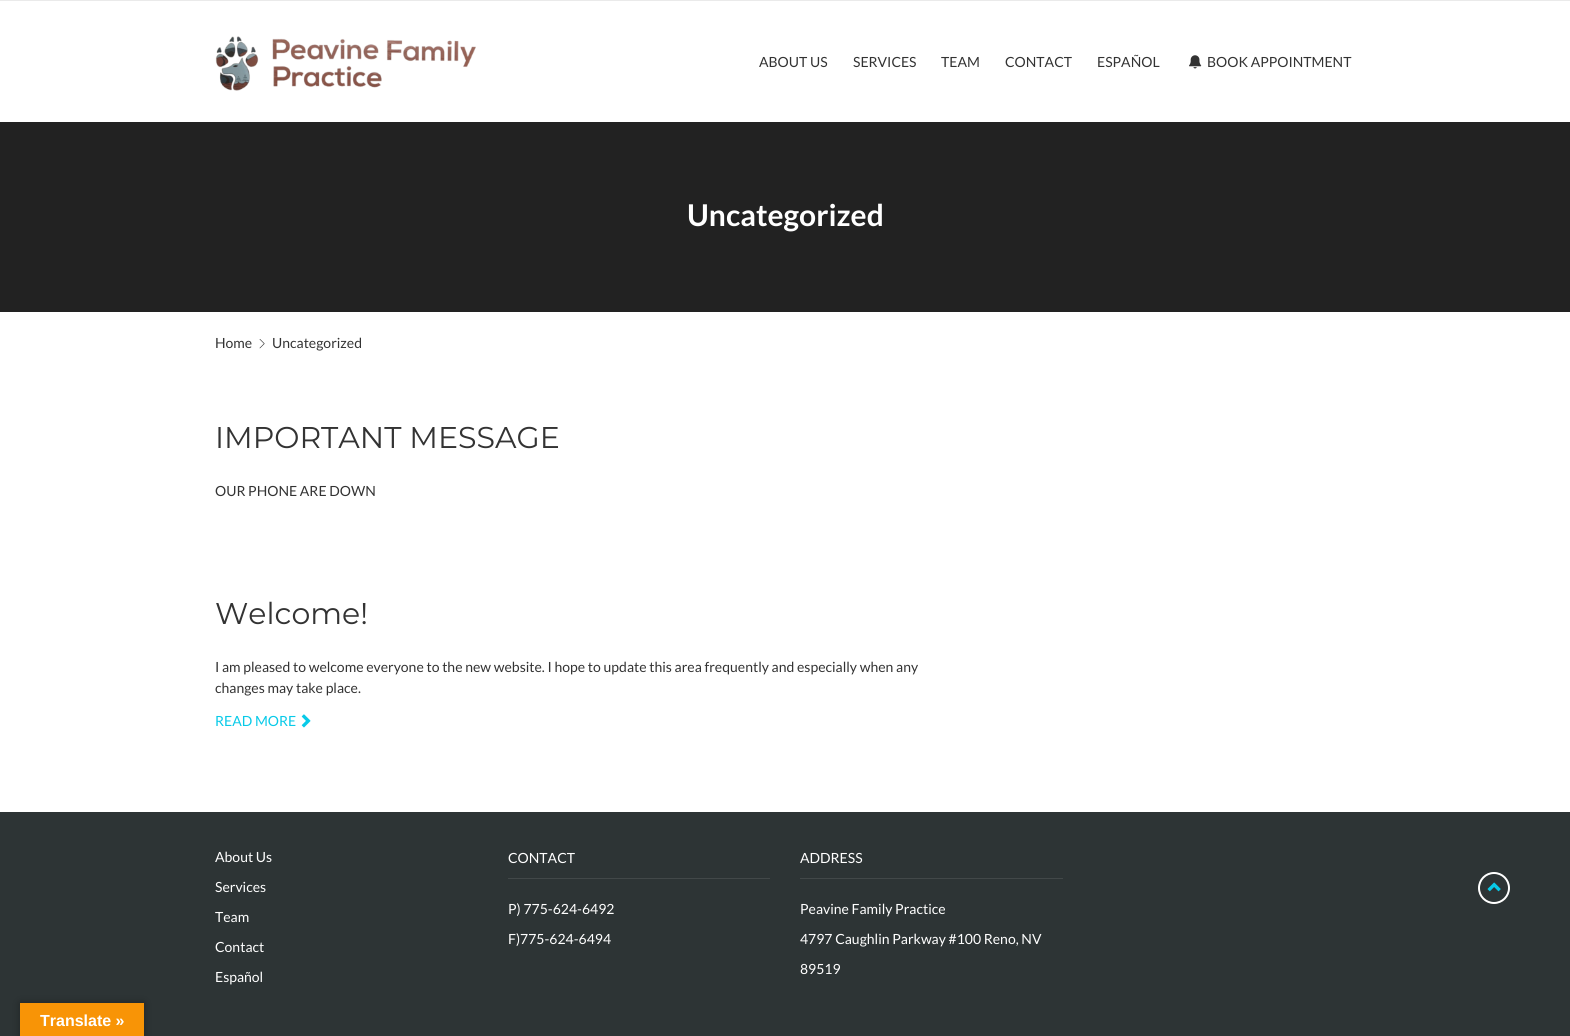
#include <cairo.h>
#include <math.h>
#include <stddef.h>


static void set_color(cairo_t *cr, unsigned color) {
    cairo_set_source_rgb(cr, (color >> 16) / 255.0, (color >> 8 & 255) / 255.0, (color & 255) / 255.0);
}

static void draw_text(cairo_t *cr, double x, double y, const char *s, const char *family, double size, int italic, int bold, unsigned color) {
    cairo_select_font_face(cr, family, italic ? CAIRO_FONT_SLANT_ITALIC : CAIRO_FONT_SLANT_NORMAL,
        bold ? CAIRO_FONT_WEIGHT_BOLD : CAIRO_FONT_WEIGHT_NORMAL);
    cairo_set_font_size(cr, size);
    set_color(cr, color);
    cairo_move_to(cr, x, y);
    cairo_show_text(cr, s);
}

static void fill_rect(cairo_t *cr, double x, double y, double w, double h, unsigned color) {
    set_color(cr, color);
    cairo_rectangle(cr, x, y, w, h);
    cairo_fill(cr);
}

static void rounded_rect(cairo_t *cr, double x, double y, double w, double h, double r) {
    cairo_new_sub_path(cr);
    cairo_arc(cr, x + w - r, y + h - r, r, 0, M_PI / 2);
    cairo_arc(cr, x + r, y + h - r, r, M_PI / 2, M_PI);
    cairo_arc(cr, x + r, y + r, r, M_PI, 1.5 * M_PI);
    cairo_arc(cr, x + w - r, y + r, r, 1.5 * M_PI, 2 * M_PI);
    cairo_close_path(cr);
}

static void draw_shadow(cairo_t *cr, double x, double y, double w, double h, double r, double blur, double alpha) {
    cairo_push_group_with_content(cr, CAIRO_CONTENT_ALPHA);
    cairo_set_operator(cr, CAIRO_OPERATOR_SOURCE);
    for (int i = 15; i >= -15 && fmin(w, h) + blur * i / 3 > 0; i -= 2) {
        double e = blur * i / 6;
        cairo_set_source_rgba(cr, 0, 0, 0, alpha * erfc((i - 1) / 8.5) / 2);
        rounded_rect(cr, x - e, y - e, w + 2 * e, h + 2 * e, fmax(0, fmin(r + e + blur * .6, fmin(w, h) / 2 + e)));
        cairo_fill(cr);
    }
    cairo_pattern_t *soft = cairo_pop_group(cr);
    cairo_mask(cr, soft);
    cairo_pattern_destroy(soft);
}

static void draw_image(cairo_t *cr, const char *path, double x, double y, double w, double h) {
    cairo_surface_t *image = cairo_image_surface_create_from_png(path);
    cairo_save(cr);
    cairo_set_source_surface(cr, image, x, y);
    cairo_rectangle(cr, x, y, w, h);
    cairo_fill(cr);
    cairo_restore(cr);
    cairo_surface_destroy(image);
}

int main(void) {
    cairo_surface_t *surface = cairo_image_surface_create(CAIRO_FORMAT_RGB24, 1570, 1036);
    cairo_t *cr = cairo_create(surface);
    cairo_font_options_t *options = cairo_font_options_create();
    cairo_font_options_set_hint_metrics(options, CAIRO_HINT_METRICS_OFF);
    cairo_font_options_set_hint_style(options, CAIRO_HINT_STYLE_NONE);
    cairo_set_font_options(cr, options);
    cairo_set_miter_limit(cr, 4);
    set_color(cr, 0xFFFFFF);
    cairo_paint(cr);
    fill_rect(cr, 0, 0, 1570, 1, 0xEAEAEA);
    draw_image(cr, "assets/img1.png", 215, 36, 261, 55);
    draw_text(cr, 759, 67, "ABOUT US", "Lato", 14, 0, 0, 0x333333);
    draw_text(cr, 853, 67, "SERVICES", "Lato", 14, 0, 0, 0x333333);
    draw_text(cr, 941, 67, "TEAM", "Lato", 14, 0, 0, 0x333333);
    draw_text(cr, 1005, 67, "CONTACT", "Lato", 14, 0, 0, 0x333333);
    draw_text(cr, 1097, 67, "ESPAÑOL", "Lato", 14, 0, 0, 0x333333);
    draw_image(cr, "assets/img2.png", 1189, 55, 13, 14);
    draw_text(cr, 1207, 67, "BOOK APPOINTMENT", "Lato", 14, 0, 0, 0x333333);
    fill_rect(cr, 0, 122, 1570, 190, 0x222222);
    draw_text(cr, 687, 226, "Uncategorized", "Lato", 30, 0, 1, 0xFFFFFF);
    draw_text(cr, 215, 348, "Home", "Lato", 14, 0, 0, 0x333333);
    draw_image(cr, "assets/img3.png", 259, 339, 6, 10);
    draw_text(cr, 272, 348, "Uncategorized", "Lato", 14, 0, 0, 0x333333);
    draw_text(cr, 215, 448, "IMPORTANT MESSAGE", "Montserrat", 30, 0, 0, 0x333333);
    draw_text(cr, 215, 496, "OUR PHONE ARE DOWN", "Lato", 14, 0, 0, 0x333333);
    draw_text(cr, 215, 624, "Welcome!", "Montserrat", 30, 0, 0, 0x333333);
    draw_text(cr, 215, 672, "I am pleased to welcome everyone to the new website. I hope to update this area frequently and especially when any", "Lato", 14, 0, 0, 0x333333);
    draw_text(cr, 215, 693, "changes may take place.", "Lato", 14, 0, 0, 0x333333);
    draw_text(cr, 215, 726, "READ MORE", "Lato", 14, 0, 0, 0x08CAE8);
    draw_image(cr, "assets/img4.png", 301, 714, 10, 14);
    fill_rect(cr, 0, 812, 1570, 224, 0x2D3435);
    draw_text(cr, 215, 862, "About Us", "Lato", 14, 0, 0, 0xFFFFFF);
    draw_text(cr, 215, 892, "Services", "Lato", 14, 0, 0, 0xFFFFFF);
    draw_text(cr, 215, 922, "Team", "Lato", 14, 0, 0, 0xFFFFFF);
    draw_text(cr, 215, 952, "Contact", "Lato", 14, 0, 0, 0xFFFFFF);
    draw_text(cr, 215, 982, "Español", "Lato", 14, 0, 0, 0xFFFFFF);
    fill_rect(cr, 508, 878, 262, 1, 0x424849);
    draw_text(cr, 508, 863, "CONTACT", "Lato", 14, 0, 0, 0xFFFFFF);
    draw_text(cr, 508, 914, "P) 775-624-6492", "Lato", 14, 0, 0, 0xFFFFFF);
    draw_text(cr, 508, 944, "F)775-624-6494", "Lato", 14, 0, 0, 0xFFFFFF);
    fill_rect(cr, 800, 878, 263, 1, 0x424849);
    draw_text(cr, 800, 863, "ADDRESS", "Lato", 14, 0, 0, 0xFFFFFF);
    draw_text(cr, 800, 914, "Peavine Family Practice", "Lato", 14, 0, 0, 0xFFFFFF);
    draw_text(cr, 800, 944, "4797 Caughlin Parkway #100 Reno, NV", "Lato", 14, 0, 0, 0xFFFFFF);
    draw_text(cr, 800, 974, "89519", "Lato", 14, 0, 0, 0xFFFFFF);
    cairo_new_path(cr);
    cairo_arc(cr, 1494, 888, 15, 0, 2 * M_PI);
    cairo_stroke(cr);
    draw_image(cr, "assets/img5.png", 1487, 882, 14, 10);
    set_color(cr, 0x000000);
    draw_shadow(cr, 20, 1003, 124, 33, 0, 4.5, 0.3);
    fill_rect(cr, 20, 1003, 124, 33, 0xF89406);
    draw_text(cr, 40, 1026, "Translate »", "Liberation Sans", 16, 0, 1, 0xFFFFFF);
    cairo_surface_write_to_png(surface, "output.png");
    cairo_font_options_destroy(options);
    cairo_destroy(cr);
    cairo_surface_destroy(surface);
    return 0;
}
